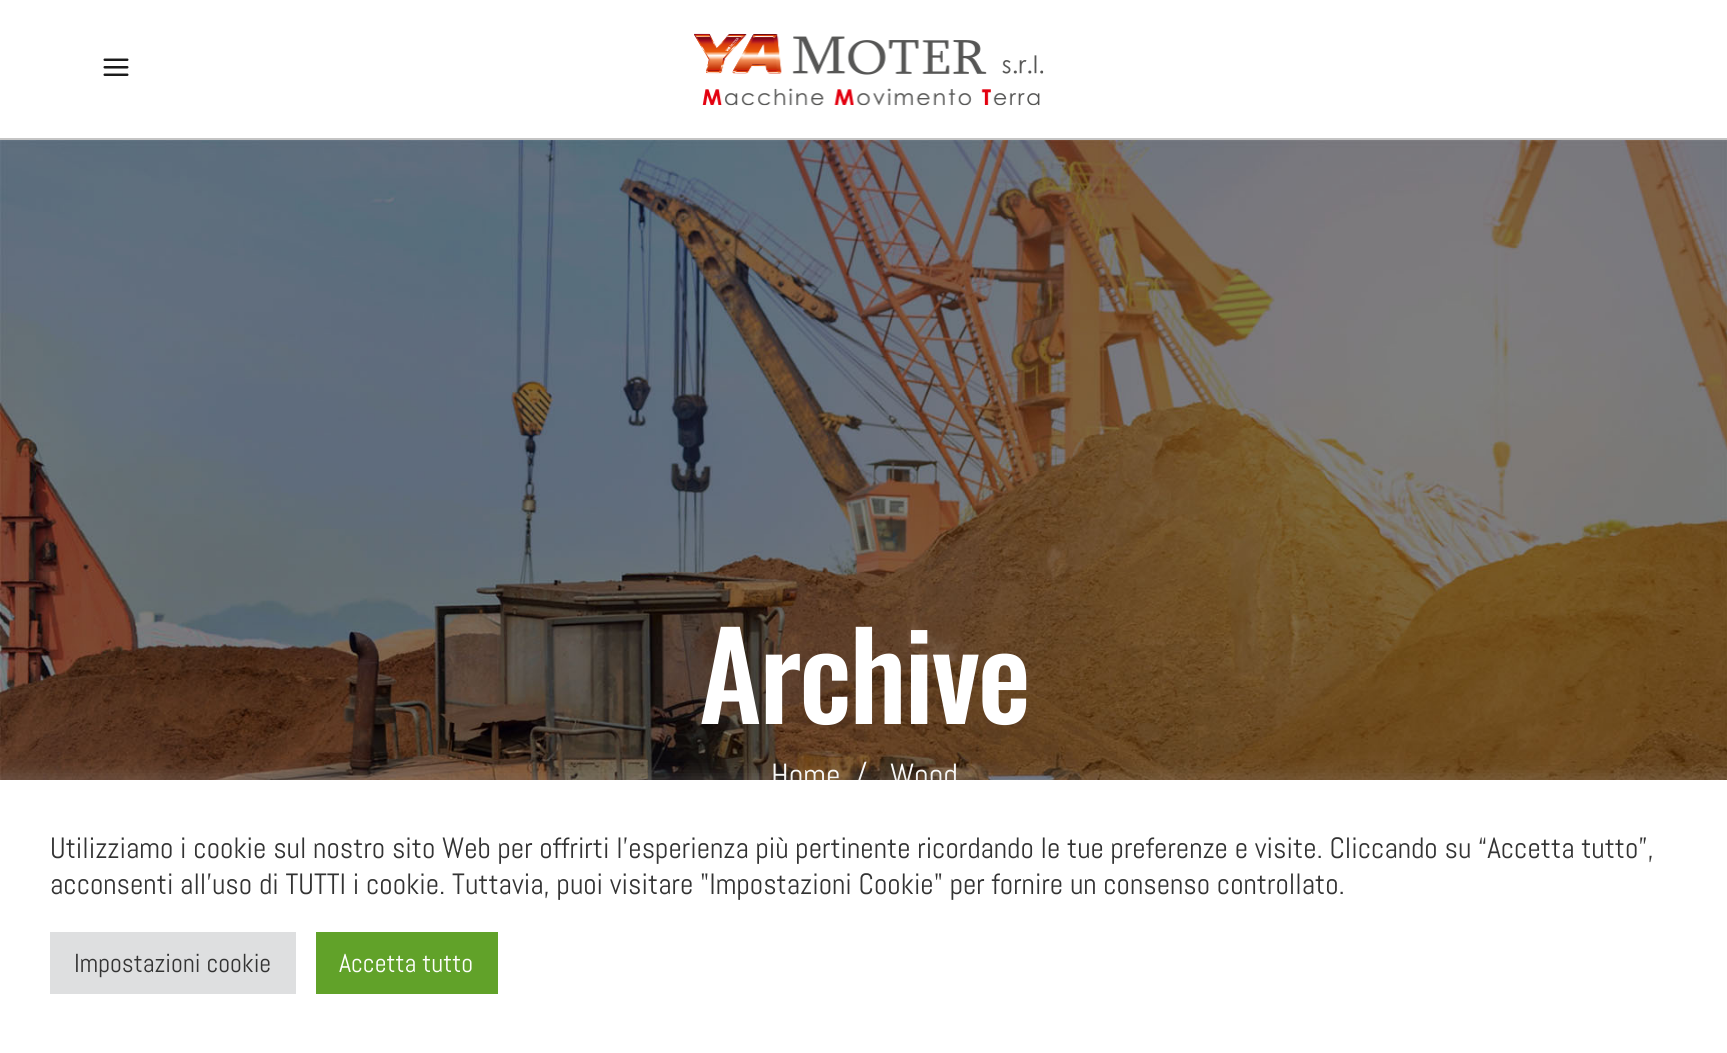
#include <cairo.h>
#include <math.h>
#include <stddef.h>


static void set_color(cairo_t *cr, unsigned color) {
    cairo_set_source_rgb(cr, (color >> 16) / 255.0, (color >> 8 & 255) / 255.0, (color & 255) / 255.0);
}

static void draw_text(cairo_t *cr, double x, double y, const char *s, const char *family, double size, int italic, int bold, unsigned color) {
    cairo_select_font_face(cr, family, italic ? CAIRO_FONT_SLANT_ITALIC : CAIRO_FONT_SLANT_NORMAL,
        bold ? CAIRO_FONT_WEIGHT_BOLD : CAIRO_FONT_WEIGHT_NORMAL);
    cairo_set_font_size(cr, size);
    set_color(cr, color);
    cairo_move_to(cr, x, y);
    cairo_show_text(cr, s);
}

static void draw_spaced(cairo_t *cr, double x, double y, const char *s, double letter, double word) {
    cairo_move_to(cr, x, y);
    while (*s) {
        char ch[5] = {0};
        int n = 0;
        do ch[n++] = *s++; while ((*s & 0xC0) == 0x80);
        cairo_show_text(cr, ch);
        cairo_rel_move_to(cr, letter + word * (*ch == ' '), 0);
    }
}

static void fill_rect(cairo_t *cr, double x, double y, double w, double h, unsigned color) {
    set_color(cr, color);
    cairo_rectangle(cr, x, y, w, h);
    cairo_fill(cr);
}

static void rounded_rect(cairo_t *cr, double x, double y, double w, double h, double r) {
    cairo_new_sub_path(cr);
    cairo_arc(cr, x + w - r, y + h - r, r, 0, M_PI / 2);
    cairo_arc(cr, x + r, y + h - r, r, M_PI / 2, M_PI);
    cairo_arc(cr, x + r, y + r, r, M_PI, 1.5 * M_PI);
    cairo_arc(cr, x + w - r, y + r, r, 1.5 * M_PI, 2 * M_PI);
    cairo_close_path(cr);
}

static void draw_shadow(cairo_t *cr, double x, double y, double w, double h, double r, double blur, double alpha) {
    cairo_push_group_with_content(cr, CAIRO_CONTENT_ALPHA);
    cairo_set_operator(cr, CAIRO_OPERATOR_SOURCE);
    for (int i = 15; i >= -15 && fmin(w, h) + blur * i / 3 > 0; i -= 2) {
        double e = blur * i / 6;
        cairo_set_source_rgba(cr, 0, 0, 0, alpha * erfc((i - 1) / 8.5) / 2);
        rounded_rect(cr, x - e, y - e, w + 2 * e, h + 2 * e, fmax(0, fmin(r + e + blur * .6, fmin(w, h) / 2 + e)));
        cairo_fill(cr);
    }
    cairo_pattern_t *soft = cairo_pop_group(cr);
    cairo_mask(cr, soft);
    cairo_pattern_destroy(soft);
}

static void draw_image(cairo_t *cr, const char *path, double x, double y, double w, double h) {
    cairo_surface_t *image = cairo_image_surface_create_from_png(path);
    cairo_save(cr);
    cairo_set_source_surface(cr, image, x, y);
    cairo_rectangle(cr, x, y, w, h);
    cairo_fill(cr);
    cairo_restore(cr);
    cairo_surface_destroy(image);
}

int main(void) {
    cairo_surface_t *surface = cairo_image_surface_create(CAIRO_FORMAT_RGB24, 1727, 1053);
    cairo_t *cr = cairo_create(surface);
    cairo_font_options_t *options = cairo_font_options_create();
    cairo_font_options_set_hint_metrics(options, CAIRO_HINT_METRICS_OFF);
    cairo_font_options_set_hint_style(options, CAIRO_HINT_STYLE_NONE);
    cairo_set_font_options(cr, options);
    cairo_set_miter_limit(cr, 4);
    set_color(cr, 0xFFFFFF);
    cairo_paint(cr);
    fill_rect(cr, 0, 138, 1727, 2, 0xC5C5C5);
    draw_image(cr, "assets/img1.png", 103, 58, 26, 18);
    draw_image(cr, "assets/img2.png", 694, 33, 350, 73);
    draw_image(cr, "assets/img3.png", 0, 140, 1727, 640);
    cairo_select_font_face(cr, "Oswald Medium", CAIRO_FONT_SLANT_NORMAL, CAIRO_FONT_WEIGHT_NORMAL);
    cairo_set_font_size(cr, 120);
    set_color(cr, 0xFFFFFF);
    draw_spaced(cr, 699, 724, "Archive", -2.5, 0);
    draw_text(cr, 771, 786, "Home", "Abel", 32, 0, 0, 0xFFFFFF);
    draw_text(cr, 855, 786, "/", "Abel", 32, 0, 0, 0xFFFFFF);
    draw_text(cr, 890, 786, "Wood", "Abel", 32, 0, 0, 0xFFFFFF);
    set_color(cr, 0xACABAB);
    draw_shadow(cr, 0, 778, 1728, 274, 0, 10, 0.3);
    fill_rect(cr, 0, 780, 1727, 273, 0xFFFFFF);
    draw_text(cr, 50, 858, "Utilizziamo i cookie sul nostro sito Web per offrirti l'esperienza più pertinente ricordando le tue preferenze e visite. Cliccando su “Accetta tutto”,", "Abel", 29.33, 0, 0, 0x333333);
    draw_text(cr, 50, 894, "acconsenti all'uso di TUTTI i cookie. Tuttavia, puoi visitare \"Impostazioni Cookie\" per fornire un consenso controllato.", "Abel", 29.33, 0, 0, 0x333333);
    fill_rect(cr, 50, 932, 246, 62, 0xDEDFE0);
    draw_text(cr, 74, 972, "Impostazioni cookie", "Abel", 26, 0, 0, 0x333333);
    fill_rect(cr, 316, 932, 182, 62, 0x61A229);
    draw_text(cr, 339, 972, "Accetta tutto", "Abel", 26, 0, 0, 0xFFFFFF);
    cairo_surface_write_to_png(surface, "output.png");
    cairo_font_options_destroy(options);
    cairo_destroy(cr);
    cairo_surface_destroy(surface);
    return 0;
}
